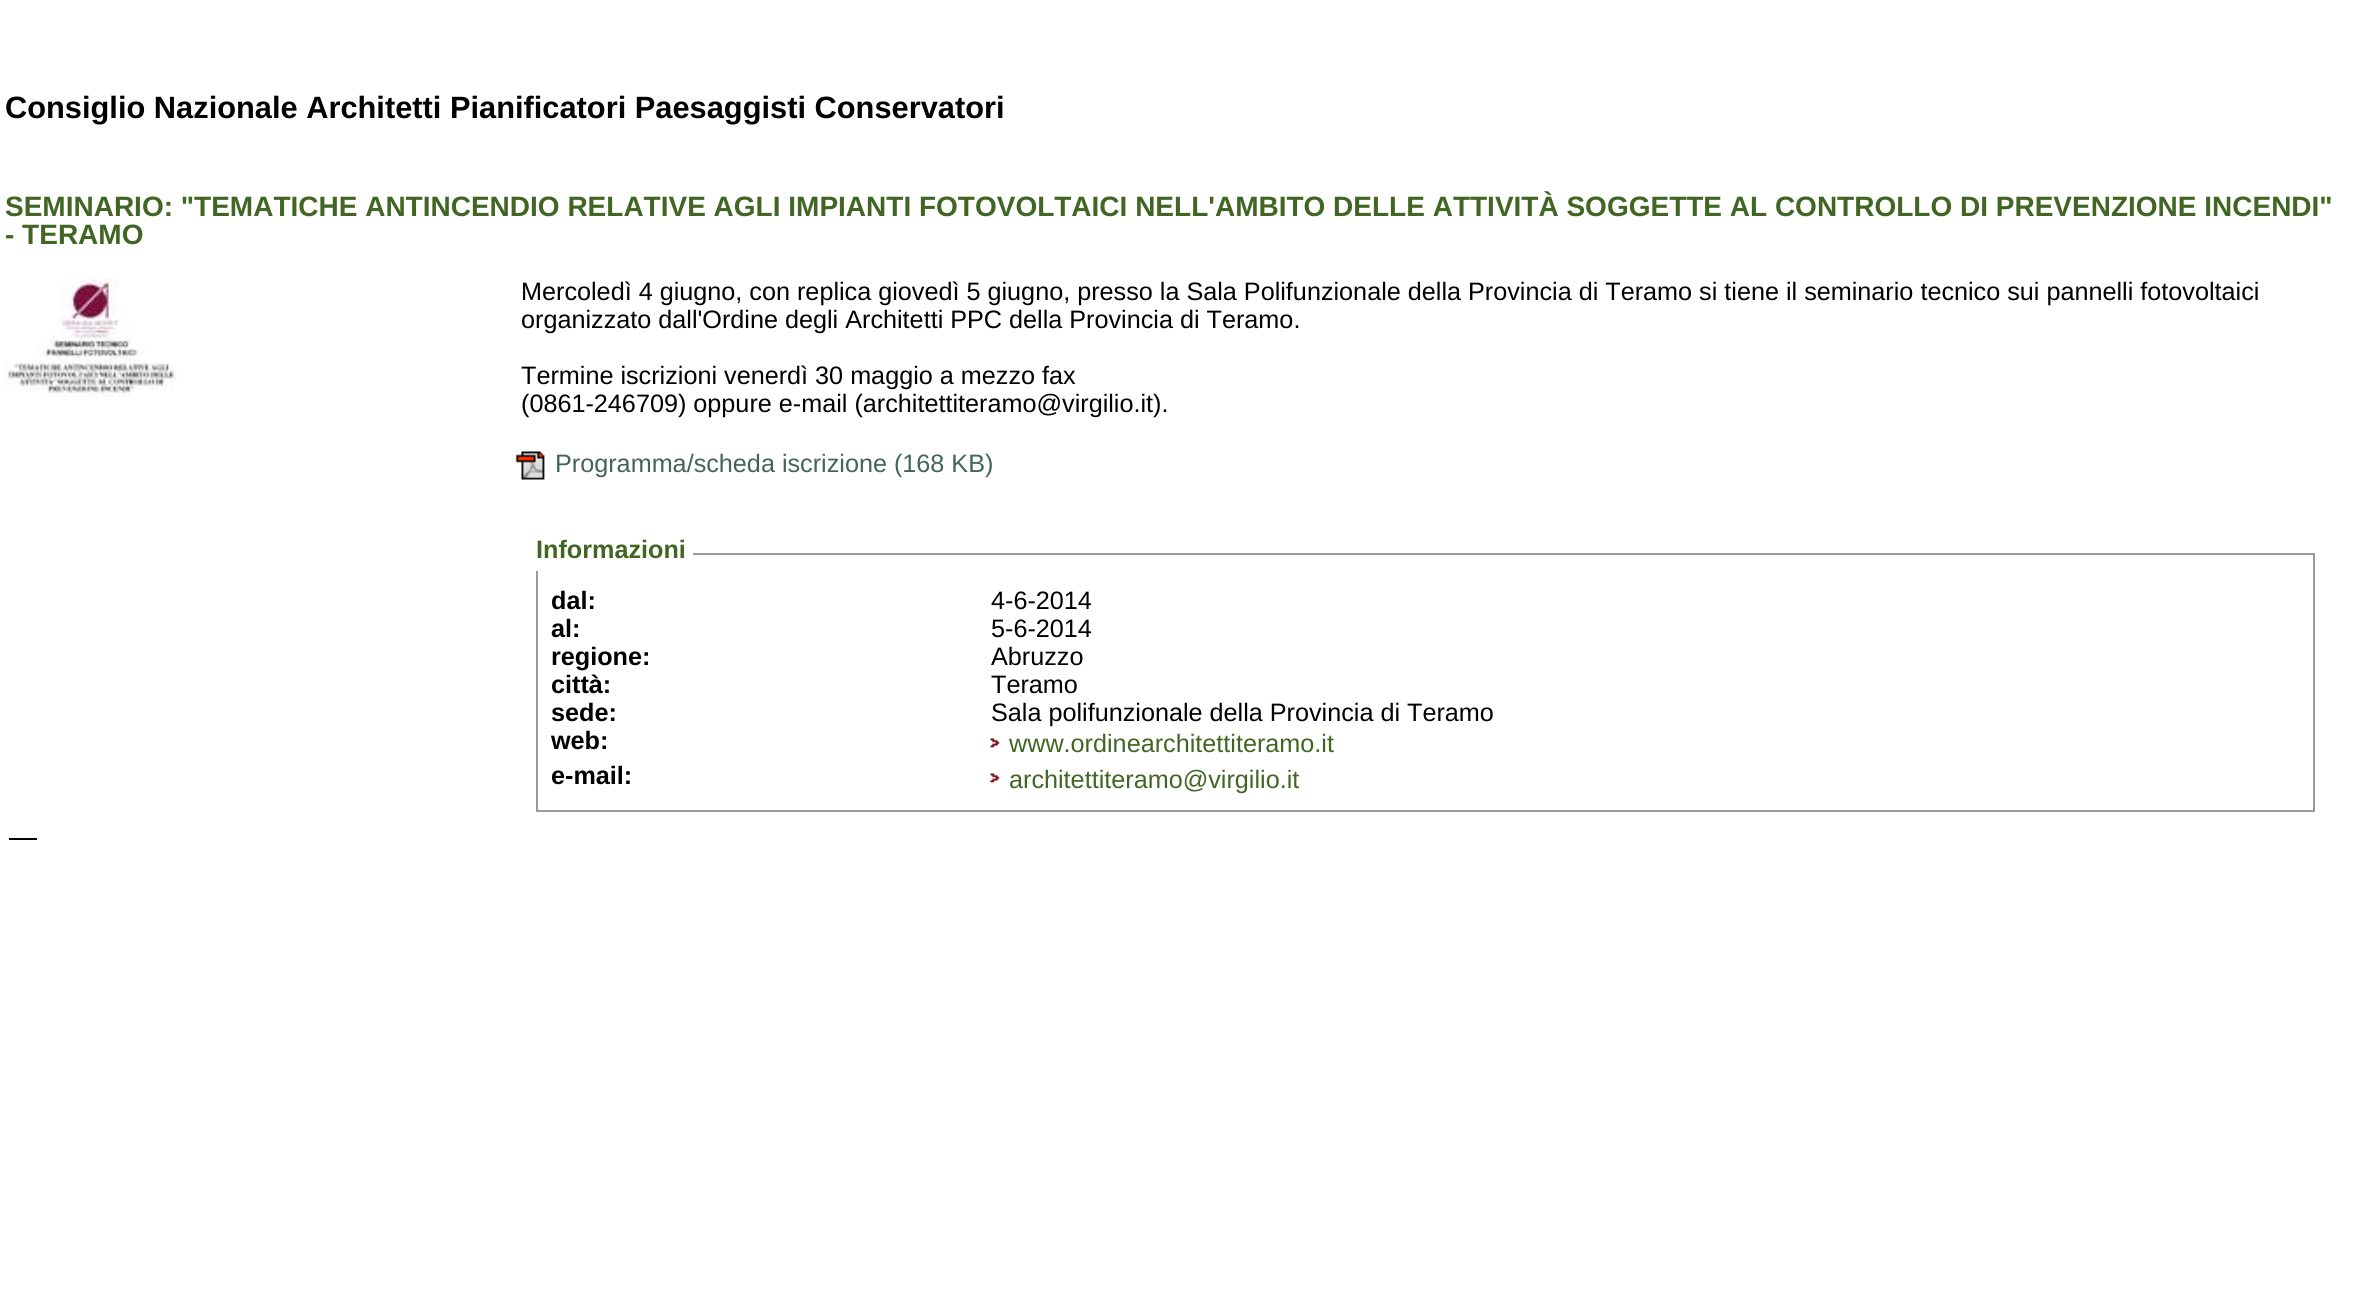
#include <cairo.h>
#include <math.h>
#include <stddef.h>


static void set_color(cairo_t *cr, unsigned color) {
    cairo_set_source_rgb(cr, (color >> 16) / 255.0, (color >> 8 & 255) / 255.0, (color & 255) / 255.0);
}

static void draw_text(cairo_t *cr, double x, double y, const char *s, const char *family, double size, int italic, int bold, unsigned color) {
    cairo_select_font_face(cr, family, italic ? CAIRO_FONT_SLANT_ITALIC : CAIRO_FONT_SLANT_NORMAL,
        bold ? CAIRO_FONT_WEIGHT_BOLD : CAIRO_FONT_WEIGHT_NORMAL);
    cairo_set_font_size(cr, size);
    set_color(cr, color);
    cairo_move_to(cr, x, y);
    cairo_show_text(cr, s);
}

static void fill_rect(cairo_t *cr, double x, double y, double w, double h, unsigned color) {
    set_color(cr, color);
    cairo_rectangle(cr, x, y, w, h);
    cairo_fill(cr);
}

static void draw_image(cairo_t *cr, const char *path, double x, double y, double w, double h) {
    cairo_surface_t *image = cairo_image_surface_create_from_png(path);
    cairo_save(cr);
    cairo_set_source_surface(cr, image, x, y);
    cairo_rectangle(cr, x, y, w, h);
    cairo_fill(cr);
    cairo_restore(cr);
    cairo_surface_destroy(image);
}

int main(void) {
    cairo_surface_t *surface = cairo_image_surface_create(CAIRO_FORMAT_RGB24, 2358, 1301);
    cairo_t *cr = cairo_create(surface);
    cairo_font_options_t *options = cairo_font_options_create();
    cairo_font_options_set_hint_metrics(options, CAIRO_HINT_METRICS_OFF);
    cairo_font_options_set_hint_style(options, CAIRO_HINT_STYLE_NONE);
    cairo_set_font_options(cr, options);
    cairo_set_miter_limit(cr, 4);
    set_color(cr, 0xFFFFFF);
    cairo_paint(cr);
    draw_text(cr, 5, 118, "Consiglio Nazionale Architetti Pianificatori Paesaggisti Conservatori", "Liberation Sans", 30.8, 0, 1, 0x000000);
    draw_text(cr, 5, 216, "SEMINARIO: \"TEMATICHE ANTINCENDIO RELATIVE AGLI IMPIANTI FOTOVOLTAICI NELL'AMBITO DELLE ATTIVITÀ SOGGETTE AL CONTROLLO DI PREVENZIONE INCENDI\"", "Liberation Sans", 28, 0, 1, 0x416623);
    draw_text(cr, 5, 244, "- TERAMO", "Liberation Sans", 28, 0, 1, 0x416623);
    draw_image(cr, "assets/img1.png", 5, 278, 172, 119);
    draw_text(cr, 521, 300, "Mercoledì 4 giugno, con replica giovedì 5 giugno, presso la Sala Polifunzionale della Provincia di Teramo si tiene il seminario tecnico sui pannelli fotovoltaici", "Liberation Sans", 25.2, 0, 0, 0x000000);
    draw_text(cr, 521, 328, "organizzato dall'Ordine degli Architetti PPC della Provincia di Teramo.", "Liberation Sans", 25.2, 0, 0, 0x000000);
    draw_text(cr, 521, 384, "Termine iscrizioni venerdì 30 maggio a mezzo fax", "Liberation Sans", 25.2, 0, 0, 0x000000);
    draw_text(cr, 521, 412, "(0861-246709) oppure e-mail (architettiteramo@virgilio.it).", "Liberation Sans", 25.2, 0, 0, 0x000000);
    draw_image(cr, "assets/img2.png", 515, 451, 30, 29);
    draw_text(cr, 555, 472, "Programma/scheda iscrizione (168 KB)", "Liberation Sans", 25.2, 0, 0, 0x416656);
    cairo_rectangle(cr, 537, 554, 1777, 257);
    set_color(cr, 0x999999);
    cairo_stroke(cr);
    fill_rect(cr, 536, 553, 157, 18, 0xFFFFFF);
    draw_text(cr, 536, 558, "Informazioni", "Liberation Sans", 25.2, 0, 1, 0x416623);
    draw_text(cr, 551, 609, "dal:", "Liberation Sans", 25.2, 0, 1, 0x000000);
    draw_text(cr, 991, 609, "4-6-2014", "Liberation Sans", 25.2, 0, 0, 0x000000);
    draw_text(cr, 551, 637, "al:", "Liberation Sans", 25.2, 0, 1, 0x000000);
    draw_text(cr, 991, 637, "5-6-2014", "Liberation Sans", 25.2, 0, 0, 0x000000);
    draw_text(cr, 551, 665, "regione:", "Liberation Sans", 25.2, 0, 1, 0x000000);
    draw_text(cr, 991, 665, "Abruzzo", "Liberation Sans", 25.2, 0, 0, 0x000000);
    draw_text(cr, 551, 693, "città:", "Liberation Sans", 25.2, 0, 1, 0x000000);
    draw_text(cr, 991, 693, "Teramo", "Liberation Sans", 25.2, 0, 0, 0x000000);
    draw_text(cr, 551, 721, "sede:", "Liberation Sans", 25.2, 0, 1, 0x000000);
    draw_text(cr, 991, 721, "Sala polifunzionale della Provincia di Teramo", "Liberation Sans", 25.2, 0, 0, 0x000000);
    draw_text(cr, 551, 749, "web:", "Liberation Sans", 25.2, 0, 1, 0x000000);
    draw_image(cr, "assets/img3.png", 990, 738, 10, 10);
    draw_text(cr, 1009, 752, "www.ordinearchitettiteramo.it", "Liberation Sans", 25.2, 0, 0, 0x416623);
    draw_text(cr, 551, 784, "e-mail:", "Liberation Sans", 25.2, 0, 1, 0x000000);
    draw_image(cr, "assets/img3.png", 990, 773, 10, 10);
    draw_text(cr, 1009, 788, "architettiteramo@virgilio.it", "Liberation Sans", 25.2, 0, 0, 0x416623);
    fill_rect(cr, 9, 838, 28, 2, 0x000000);
    cairo_surface_write_to_png(surface, "output.png");
    cairo_font_options_destroy(options);
    cairo_destroy(cr);
    cairo_surface_destroy(surface);
    return 0;
}
